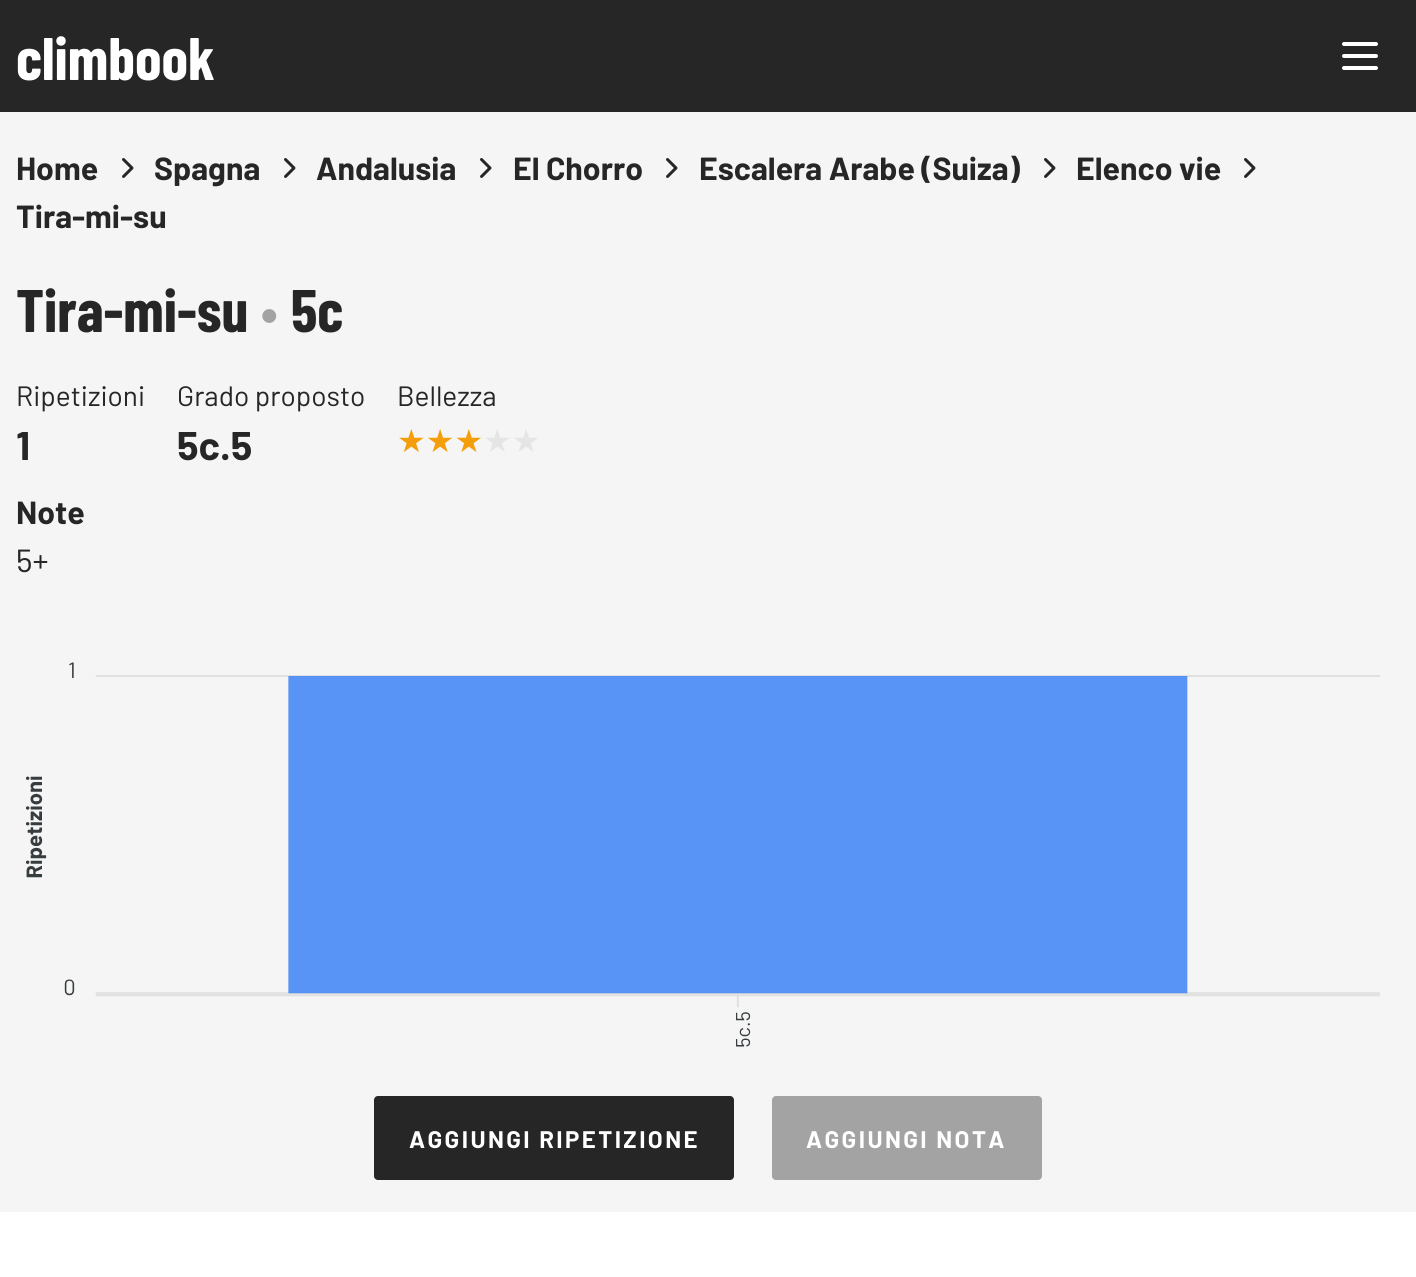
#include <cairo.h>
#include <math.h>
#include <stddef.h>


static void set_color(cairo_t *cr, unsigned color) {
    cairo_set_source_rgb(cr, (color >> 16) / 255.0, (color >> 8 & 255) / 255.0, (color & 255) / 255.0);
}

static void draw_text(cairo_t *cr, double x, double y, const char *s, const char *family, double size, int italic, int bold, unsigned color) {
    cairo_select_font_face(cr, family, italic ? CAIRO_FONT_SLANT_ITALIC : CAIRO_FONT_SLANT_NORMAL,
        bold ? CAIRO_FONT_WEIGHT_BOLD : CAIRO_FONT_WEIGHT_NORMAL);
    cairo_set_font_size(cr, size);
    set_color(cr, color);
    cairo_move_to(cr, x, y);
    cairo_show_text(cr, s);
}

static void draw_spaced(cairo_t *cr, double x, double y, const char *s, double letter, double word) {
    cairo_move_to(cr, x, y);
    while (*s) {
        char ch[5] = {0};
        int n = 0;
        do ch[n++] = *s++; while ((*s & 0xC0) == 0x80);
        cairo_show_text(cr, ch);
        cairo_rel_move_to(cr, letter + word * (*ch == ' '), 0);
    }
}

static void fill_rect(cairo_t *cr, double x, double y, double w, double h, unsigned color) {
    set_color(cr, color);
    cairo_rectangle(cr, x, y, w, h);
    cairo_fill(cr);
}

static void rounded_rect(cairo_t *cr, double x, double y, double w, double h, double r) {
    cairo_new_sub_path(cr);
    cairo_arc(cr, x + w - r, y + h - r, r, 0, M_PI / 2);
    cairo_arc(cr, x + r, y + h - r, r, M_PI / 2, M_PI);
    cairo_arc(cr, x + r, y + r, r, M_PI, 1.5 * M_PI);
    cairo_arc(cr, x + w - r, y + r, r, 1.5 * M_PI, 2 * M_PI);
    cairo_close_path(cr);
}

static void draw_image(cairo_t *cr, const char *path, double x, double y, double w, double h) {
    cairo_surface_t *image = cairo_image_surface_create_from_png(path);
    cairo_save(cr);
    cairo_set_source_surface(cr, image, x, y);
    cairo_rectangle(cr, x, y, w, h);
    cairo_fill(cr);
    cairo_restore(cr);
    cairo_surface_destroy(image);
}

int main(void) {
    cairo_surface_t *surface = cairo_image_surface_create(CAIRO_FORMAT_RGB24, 1416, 1277);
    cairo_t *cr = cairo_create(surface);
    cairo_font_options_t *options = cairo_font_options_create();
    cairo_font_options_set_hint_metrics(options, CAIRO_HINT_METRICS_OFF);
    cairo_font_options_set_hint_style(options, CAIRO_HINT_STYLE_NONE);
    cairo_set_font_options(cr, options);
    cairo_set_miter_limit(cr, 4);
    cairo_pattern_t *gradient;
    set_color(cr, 0xFFFFFF);
    cairo_paint(cr);
    fill_rect(cr, 0, 0, 1416, 112, 0x262626);
    draw_text(cr, 16, 80, "climbook", "Barlow Condensed", 60, 0, 1, 0xFFFFFF);
    cairo_new_path(cr);
    cairo_move_to(cr, 1344, 44);
    cairo_line_to(cr, 1376, 44);
    cairo_move_to(cr, 1344, 56);
    cairo_line_to(cr, 1376, 56);
    cairo_move_to(cr, 1344, 68);
    cairo_line_to(cr, 1376, 68);
    cairo_set_line_width(cr, 4);
    cairo_set_line_cap(cr, CAIRO_LINE_CAP_ROUND);
    cairo_set_line_join(cr, CAIRO_LINE_JOIN_ROUND);
    cairo_stroke(cr);
    fill_rect(cr, 0, 112, 1416, 1100, 0xF5F5F5);
    draw_text(cr, 16, 180, "Home", "Barlow", 32, 0, 1, 0x262626);
    draw_image(cr, "assets/img1.png", 122, 158, 12, 20);
    draw_text(cr, 154, 180, "Spagna", "Barlow", 32, 0, 1, 0x262626);
    draw_image(cr, "assets/img1.png", 284, 158, 12, 20);
    draw_text(cr, 316, 180, "Andalusia", "Barlow", 32, 0, 1, 0x262626);
    draw_image(cr, "assets/img1.png", 480, 158, 12, 20);
    draw_text(cr, 513, 180, "El Chorro", "Barlow", 32, 0, 1, 0x262626);
    draw_image(cr, "assets/img1.png", 666, 158, 12, 20);
    draw_text(cr, 699, 180, "Escalera Arabe (Suiza)", "Barlow", 32, 0, 1, 0x262626);
    draw_image(cr, "assets/img1.png", 1044, 158, 12, 20);
    draw_text(cr, 1076, 180, "Elenco vie", "Barlow", 32, 0, 1, 0x262626);
    draw_image(cr, "assets/img1.png", 1244, 158, 12, 20);
    draw_text(cr, 16, 228, "Tira-mi-su", "Barlow", 32, 0, 1, 0x262626);
    draw_text(cr, 16, 332, "Tira-mi-su", "Barlow Condensed", 60, 0, 1, 0x262626);
    draw_text(cr, 260, 332, "•", "Barlow", 60, 0, 0, 0xA3A3A3);
    draw_text(cr, 291, 332, "5c", "Barlow Condensed", 60, 0, 1, 0x262626);
    draw_text(cr, 16, 406, "Ripetizioni", "Barlow", 28, 0, 0, 0x262626);
    draw_text(cr, 16, 460, "1", "Barlow", 40, 0, 1, 0x262626);
    draw_text(cr, 177, 406, "Grado proposto", "Barlow", 28, 0, 0, 0x262626);
    draw_text(cr, 177, 460, "5c.5", "Barlow", 40, 0, 1, 0x262626);
    draw_text(cr, 397, 406, "Bellezza", "Barlow", 28, 0, 0, 0x262626);
    cairo_select_font_face(cr, "DejaVu Sans", CAIRO_FONT_SLANT_NORMAL, CAIRO_FONT_WEIGHT_NORMAL);
    cairo_set_font_size(cr, 32);
    gradient = cairo_pattern_create_linear(397, 441, 541, 441);
    cairo_pattern_add_color_stop_rgba(gradient, 0.6, 0.961, 0.62, 0.043, 1);
    cairo_pattern_add_color_stop_rgba(gradient, 0.6, 0.898, 0.898, 0.898, 1);
    cairo_set_source(cr, gradient);
    cairo_pattern_destroy(gradient);
    cairo_move_to(cr, 397, 452);
    cairo_show_text(cr, "★★★★★");
    draw_text(cr, 16, 524, "Note", "Barlow", 32, 0, 1, 0x262626);
    draw_text(cr, 16, 572, "5+", "Barlow", 32, 0, 0, 0x262626);
    draw_image(cr, "assets/img2.png", 26, 662, 1354, 385);
    rounded_rect(cr, 374, 1096, 360, 84, 4);
    cairo_fill(cr);
    cairo_select_font_face(cr, "Barlow", CAIRO_FONT_SLANT_NORMAL, CAIRO_FONT_WEIGHT_BOLD);
    cairo_set_font_size(cr, 24);
    set_color(cr, 0xFFFFFF);
    draw_spaced(cr, 409, 1148, "AGGIUNGI RIPETIZIONE", 2.4, 0);
    set_color(cr, 0xA3A3A3);
    rounded_rect(cr, 772, 1096, 270, 84, 4);
    cairo_fill(cr);
    set_color(cr, 0xFFFFFF);
    draw_spaced(cr, 806, 1148, "AGGIUNGI NOTA", 2.4, 0);
    cairo_surface_write_to_png(surface, "output.png");
    cairo_font_options_destroy(options);
    cairo_destroy(cr);
    cairo_surface_destroy(surface);
    return 0;
}
